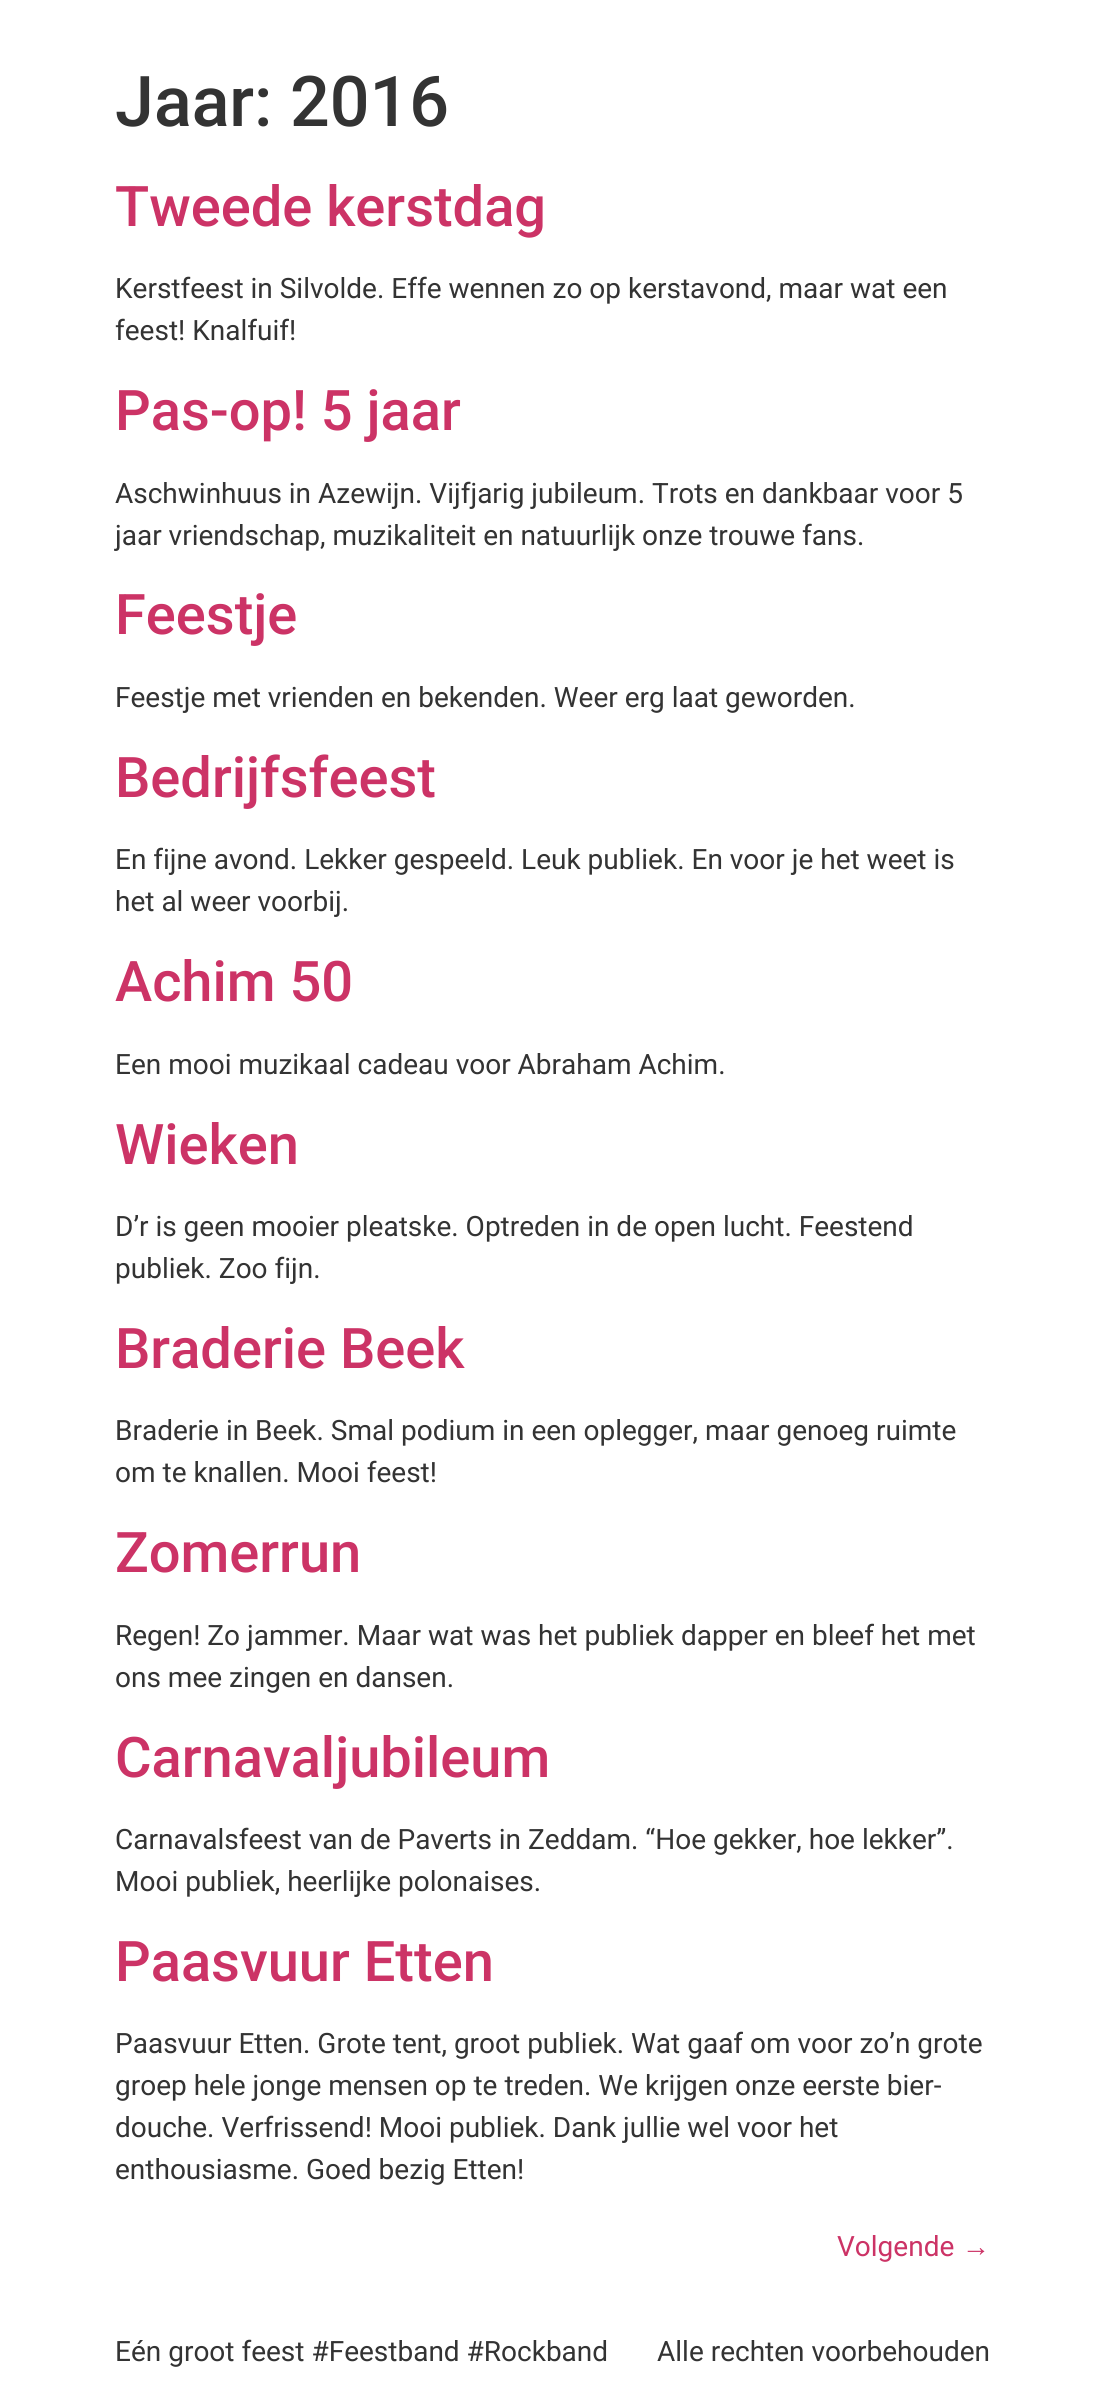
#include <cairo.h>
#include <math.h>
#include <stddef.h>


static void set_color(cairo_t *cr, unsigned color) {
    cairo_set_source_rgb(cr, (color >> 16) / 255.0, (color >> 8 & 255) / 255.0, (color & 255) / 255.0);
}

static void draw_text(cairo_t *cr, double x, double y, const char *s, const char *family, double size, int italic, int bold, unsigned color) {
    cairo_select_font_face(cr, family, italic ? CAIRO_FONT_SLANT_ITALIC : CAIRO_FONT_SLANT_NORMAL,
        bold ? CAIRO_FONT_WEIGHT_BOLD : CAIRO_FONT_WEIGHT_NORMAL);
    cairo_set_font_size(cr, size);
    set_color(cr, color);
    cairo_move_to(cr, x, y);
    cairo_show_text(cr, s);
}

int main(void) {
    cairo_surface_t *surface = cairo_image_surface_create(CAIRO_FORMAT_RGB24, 1104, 2400);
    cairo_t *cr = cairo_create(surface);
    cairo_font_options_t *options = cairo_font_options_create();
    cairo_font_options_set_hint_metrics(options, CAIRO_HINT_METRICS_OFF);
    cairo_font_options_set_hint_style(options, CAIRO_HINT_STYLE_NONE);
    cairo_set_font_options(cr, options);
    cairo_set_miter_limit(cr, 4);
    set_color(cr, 0xFFFFFF);
    cairo_paint(cr);
    draw_text(cr, 115, 126, "Jaar: 2016", "Roboto Medium", 70, 0, 0, 0x333333);
    draw_text(cr, 115, 226, "Tweede kerstdag", "Roboto Medium", 56, 0, 0, 0xCC3366);
    draw_text(cr, 115, 298, "Kerstfeest in Silvolde. Effe wennen zo op kerstavond, maar wat een", "Roboto", 28, 0, 0, 0x333333);
    draw_text(cr, 115, 340, "feest! Knalfuif!", "Roboto", 28, 0, 0, 0x333333);
    draw_text(cr, 115, 430, "Pas-op! 5 jaar", "Roboto Medium", 56, 0, 0, 0xCC3366);
    draw_text(cr, 115, 503, "Aschwinhuus in Azewijn. Vijfjarig jubileum. Trots en dankbaar voor 5", "Roboto", 28, 0, 0, 0x333333);
    draw_text(cr, 115, 545, "jaar vriendschap, muzikaliteit en natuurlijk onze trouwe fans.", "Roboto", 28, 0, 0, 0x333333);
    draw_text(cr, 115, 634, "Feestje", "Roboto Medium", 56, 0, 0, 0xCC3366);
    draw_text(cr, 115, 707, "Feestje met vrienden en bekenden. Weer erg laat geworden.", "Roboto", 28, 0, 0, 0x333333);
    draw_text(cr, 115, 797, "Bedrijfsfeest", "Roboto Medium", 56, 0, 0, 0xCC3366);
    draw_text(cr, 115, 869, "En fijne avond. Lekker gespeeld. Leuk publiek. En voor je het weet is", "Roboto", 28, 0, 0, 0x333333);
    draw_text(cr, 115, 911, "het al weer voorbij.", "Roboto", 28, 0, 0, 0x333333);
    draw_text(cr, 115, 1001, "Achim 50", "Roboto Medium", 56, 0, 0, 0xCC3366);
    draw_text(cr, 115, 1074, "Een mooi muzikaal cadeau voor Abraham Achim.", "Roboto", 28, 0, 0, 0x333333);
    draw_text(cr, 115, 1164, "Wieken", "Roboto Medium", 56, 0, 0, 0xCC3366);
    draw_text(cr, 115, 1236, "D’r is geen mooier pleatske. Optreden in de open lucht. Feestend", "Roboto", 28, 0, 0, 0x333333);
    draw_text(cr, 115, 1278, "publiek. Zoo fijn.", "Roboto", 28, 0, 0, 0x333333);
    draw_text(cr, 115, 1368, "Braderie Beek", "Roboto Medium", 56, 0, 0, 0xCC3366);
    draw_text(cr, 115, 1440, "Braderie in Beek. Smal podium in een oplegger, maar genoeg ruimte", "Roboto", 28, 0, 0, 0x333333);
    draw_text(cr, 115, 1482, "om te knallen. Mooi feest!", "Roboto", 28, 0, 0, 0x333333);
    draw_text(cr, 115, 1572, "Zomerrun", "Roboto Medium", 56, 0, 0, 0xCC3366);
    draw_text(cr, 115, 1645, "Regen! Zo jammer. Maar wat was het publiek dapper en bleef het met", "Roboto", 28, 0, 0, 0x333333);
    draw_text(cr, 115, 1687, "ons mee zingen en dansen.", "Roboto", 28, 0, 0, 0x333333);
    draw_text(cr, 115, 1777, "Carnavaljubileum", "Roboto Medium", 56, 0, 0, 0xCC3366);
    draw_text(cr, 115, 1849, "Carnavalsfeest van de Paverts in Zeddam. “Hoe gekker, hoe lekker”.", "Roboto", 28, 0, 0, 0x333333);
    draw_text(cr, 115, 1891, "Mooi publiek, heerlijke polonaises.", "Roboto", 28, 0, 0, 0x333333);
    draw_text(cr, 115, 1981, "Paasvuur Etten", "Roboto Medium", 56, 0, 0, 0xCC3366);
    draw_text(cr, 115, 2053, "Paasvuur Etten. Grote tent, groot publiek. Wat gaaf om voor zo’n grote", "Roboto", 28, 0, 0, 0x333333);
    draw_text(cr, 115, 2095, "groep hele jonge mensen op te treden. We krijgen onze eerste bier-", "Roboto", 28, 0, 0, 0x333333);
    draw_text(cr, 115, 2137, "douche. Verfrissend! Mooi publiek. Dank jullie wel voor het", "Roboto", 28, 0, 0, 0x333333);
    draw_text(cr, 115, 2179, "enthousiasme. Goed bezig Etten!", "Roboto", 28, 0, 0, 0x333333);
    draw_text(cr, 837, 2256, "Volgende", "Roboto", 28, 0, 0, 0xCC3366);
    draw_text(cr, 962, 2256, "→", "Liberation Sans", 28, 0, 0, 0xCC3366);
    draw_text(cr, 115, 2361, "Eén groot feest #Feestband #Rockband", "Roboto", 28, 0, 0, 0x333333);
    draw_text(cr, 657, 2361, "Alle rechten voorbehouden", "Roboto", 28, 0, 0, 0x333333);
    cairo_surface_write_to_png(surface, "output.png");
    cairo_font_options_destroy(options);
    cairo_destroy(cr);
    cairo_surface_destroy(surface);
    return 0;
}
